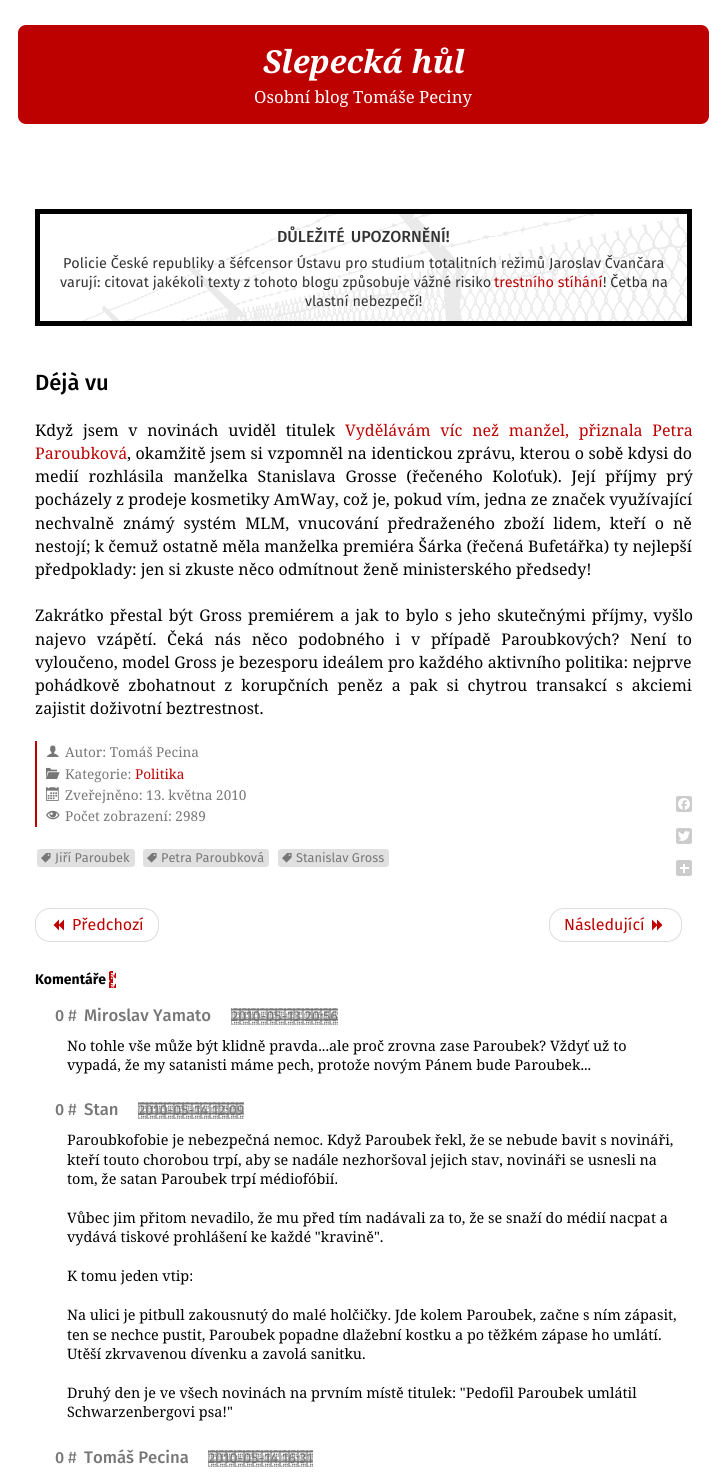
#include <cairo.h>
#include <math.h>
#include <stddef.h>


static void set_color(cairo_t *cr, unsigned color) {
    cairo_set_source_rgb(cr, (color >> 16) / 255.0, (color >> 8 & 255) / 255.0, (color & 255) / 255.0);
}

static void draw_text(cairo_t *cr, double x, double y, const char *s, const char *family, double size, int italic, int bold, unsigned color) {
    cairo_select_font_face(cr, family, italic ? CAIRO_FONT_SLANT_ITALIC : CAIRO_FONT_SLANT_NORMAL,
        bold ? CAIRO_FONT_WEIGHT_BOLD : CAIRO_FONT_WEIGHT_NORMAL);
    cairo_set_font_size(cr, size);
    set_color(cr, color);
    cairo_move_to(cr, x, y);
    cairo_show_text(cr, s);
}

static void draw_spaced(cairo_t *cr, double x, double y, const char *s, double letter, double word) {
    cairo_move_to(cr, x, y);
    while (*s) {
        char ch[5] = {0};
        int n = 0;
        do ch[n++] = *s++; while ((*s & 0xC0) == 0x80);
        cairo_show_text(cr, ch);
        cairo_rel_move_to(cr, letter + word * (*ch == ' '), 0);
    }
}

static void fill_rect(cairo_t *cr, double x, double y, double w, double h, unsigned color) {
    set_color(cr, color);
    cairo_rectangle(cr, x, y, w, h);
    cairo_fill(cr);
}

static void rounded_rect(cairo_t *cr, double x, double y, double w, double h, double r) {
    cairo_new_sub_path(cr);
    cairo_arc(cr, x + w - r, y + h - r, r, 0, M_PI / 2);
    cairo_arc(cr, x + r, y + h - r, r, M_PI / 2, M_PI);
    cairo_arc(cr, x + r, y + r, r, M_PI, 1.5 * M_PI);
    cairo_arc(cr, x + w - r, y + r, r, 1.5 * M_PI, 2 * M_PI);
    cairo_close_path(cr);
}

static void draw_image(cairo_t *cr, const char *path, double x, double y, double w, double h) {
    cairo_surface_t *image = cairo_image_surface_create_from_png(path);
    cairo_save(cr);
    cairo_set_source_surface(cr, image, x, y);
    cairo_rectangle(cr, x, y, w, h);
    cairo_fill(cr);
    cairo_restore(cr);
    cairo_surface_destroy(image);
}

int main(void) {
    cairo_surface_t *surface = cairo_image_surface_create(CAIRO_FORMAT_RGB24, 727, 1473);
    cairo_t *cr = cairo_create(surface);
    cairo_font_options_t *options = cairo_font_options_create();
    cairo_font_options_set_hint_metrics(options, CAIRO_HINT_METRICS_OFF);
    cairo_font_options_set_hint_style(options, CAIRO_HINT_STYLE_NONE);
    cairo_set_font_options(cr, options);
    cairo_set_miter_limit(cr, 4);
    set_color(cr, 0xFFFFFF);
    cairo_paint(cr);
    set_color(cr, 0xBD0000);
    rounded_rect(cr, 18, 25, 691, 99, 8);
    cairo_fill(cr);
    draw_text(cr, 263, 73, "Slepecká hůl", "Noto Serif", 31.75, 1, 1, 0xFFFFFF);
    draw_text(cr, 254, 103, "Osobní blog Tomáše Peciny", "Noto Serif", 16.75, 0, 0, 0xFFFFFF);
    draw_image(cr, "assets/img1.png", 40, 214, 647, 107);
    cairo_rectangle(cr, 37.5, 211.5, 652, 112);
    set_color(cr, 0x000000);
    cairo_set_line_width(cr, 5);
    cairo_stroke(cr);
    cairo_select_font_face(cr, "Fira Sans Medium", CAIRO_FONT_SLANT_NORMAL, CAIRO_FONT_WEIGHT_NORMAL);
    cairo_set_font_size(cr, 16);
    set_color(cr, 0x333333);
    draw_spaced(cr, 277, 242, "DŮLEŽITÉ UPOZORNĚNÍ!", 0, 2);
    draw_text(cr, 63, 268, "Policie České republiky a šéfcensor Ústavu pro studium totalitních režimů Jaroslav Čvančara", "Fira Sans", 14.4, 0, 0, 0x333333);
    draw_text(cr, 60, 287, "varují: citovat jakékoli texty z tohoto blogu způsobuje vážné risiko", "Fira Sans", 14.4, 0, 0, 0x333333);
    draw_text(cr, 494, 287, "trestního stíhání", "Fira Sans", 14.4, 0, 0, 0xBD0000);
    draw_text(cr, 603, 287, "! Četba na", "Fira Sans", 14.4, 0, 0, 0x333333);
    draw_text(cr, 305, 306, "vlastní nebezpečí!", "Fira Sans", 14.4, 0, 0, 0x333333);
    draw_text(cr, 35, 390, "Déjà vu", "Fira Sans Medium", 22, 0, 0, 0x000000);
    cairo_select_font_face(cr, "Noto Serif", CAIRO_FONT_SLANT_NORMAL, CAIRO_FONT_WEIGHT_NORMAL);
    cairo_set_font_size(cr, 16);
    draw_spaced(cr, 35, 436, "Když jsem v novinách uviděl titulek", 0, 5.5);
    set_color(cr, 0xBD0000);
    draw_spaced(cr, 345, 436, "Vydělávám víc než manžel, přiznala Petra", 0, 5.5);
    draw_text(cr, 35, 459, "Paroubková", "Noto Serif", 16, 0, 0, 0xBD0000);
    set_color(cr, 0x000000);
    draw_spaced(cr, 127, 459, ", okamžitě jsem si vzpomněl na identickou zprávu, kterou o sobě kdysi do", 0, 0.4);
    draw_spaced(cr, 35, 482, "medií rozhlásila manželka Stanislava Grosse (řečeného Koloťuk). Její příjmy prý", 0, 5.5);
    draw_text(cr, 35, 505, "pocházely z prodeje kosmetiky AmWay, což je, pokud vím, jedna ze značek využívající", "Noto Serif", 16, 0, 0, 0x000000);
    draw_spaced(cr, 35, 529, "nechvalně známý systém MLM, vnucování předraženého zboží lidem, kteří o ně", 0, 4.75);
    draw_spaced(cr, 35, 552, "nestojí; k čemuž ostatně měla manželka premiéra Šárka (řečená Bufetářka) ty nejlepší", 0, 0.1);
    draw_text(cr, 35, 575, "předpoklady: jen si zkuste něco odmítnout ženě ministerského předsedy!", "Noto Serif", 16, 0, 0, 0x000000);
    draw_spaced(cr, 35, 621, "Zakrátko přestal být Gross premiérem a jak to bylo s jeho skutečnými příjmy, vyšlo", 0, 2);
    draw_spaced(cr, 35, 645, "najevo vzápětí. Čeká nás něco podobného i v případě Paroubkových? Není to", 0, 6.5);
    draw_spaced(cr, 35, 668, "vyloučeno, model Gross je bezesporu ideálem pro každého aktivního politika: nejprve", 0, 0.25);
    draw_spaced(cr, 35, 691, "pohádkově zbohatnout z korupčních peněz a pak si chytrou transakcí s akciemi", 0, 4.6);
    draw_text(cr, 35, 714, "zajistit doživotní beztrestnost.", "Noto Serif", 16, 0, 0, 0x000000);
    set_color(cr, 0xCCCCCC);
    rounded_rect(cr, 676, 796, 16, 16, 2);
    cairo_fill(cr);
    draw_image(cr, "assets/img2.png", 678, 798, 12, 12);
    rounded_rect(cr, 676, 828, 16, 16, 2);
    cairo_fill(cr);
    draw_image(cr, "assets/img3.png", 678, 831, 12, 10);
    rounded_rect(cr, 676, 860, 16, 16, 2);
    cairo_fill(cr);
    fill_rect(cr, 683, 864, 2, 9, 0xFFFFFF);
    fill_rect(cr, 680, 867, 9, 2, 0xFFFFFF);
    fill_rect(cr, 35, 741, 2, 86, 0xBD0000);
    draw_image(cr, "assets/img4.png", 46, 745, 13, 12);
    draw_text(cr, 65, 757, "Autor: Tomáš Pecina", "Noto Serif", 13.6, 0, 0, 0x777777);
    draw_image(cr, "assets/img5.png", 46, 767, 14, 12);
    draw_text(cr, 65, 779, "Kategorie:", "Noto Serif", 13.6, 0, 0, 0x777777);
    draw_text(cr, 135, 779, "Politika", "Noto Serif", 13.6, 0, 0, 0xBD0000);
    draw_image(cr, "assets/img6.png", 46, 787, 13, 14);
    draw_text(cr, 65, 800, "Zveřejněno: 13. května 2010", "Noto Serif", 13.6, 0, 0, 0x777777);
    draw_image(cr, "assets/img7.png", 46, 810, 14, 10);
    draw_text(cr, 65, 821, "Počet zobrazení: 2989", "Noto Serif", 13.6, 0, 0, 0x777777);
    set_color(cr, 0xE0E0E0);
    rounded_rect(cr, 37, 849, 98, 18, 3);
    cairo_fill(cr);
    draw_image(cr, "assets/img8.png", 41, 853, 10, 10);
    draw_text(cr, 55, 862, "Jiří Paroubek", "Fira Sans", 12.75, 0, 0, 0x777777);
    set_color(cr, 0xE0E0E0);
    rounded_rect(cr, 143, 849, 126, 18, 3);
    cairo_fill(cr);
    draw_image(cr, "assets/img8.png", 147, 853, 10, 10);
    draw_text(cr, 161, 862, "Petra Paroubková", "Fira Sans", 12.75, 0, 0, 0x777777);
    set_color(cr, 0xE0E0E0);
    rounded_rect(cr, 278, 849, 111, 18, 3);
    cairo_fill(cr);
    draw_image(cr, "assets/img8.png", 282, 853, 10, 10);
    draw_text(cr, 296, 862, "Stanislav Gross", "Fira Sans", 12.75, 0, 0, 0x777777);
    rounded_rect(cr, 35.5, 908.5, 123, 33, 14.5);
    set_color(cr, 0xDDDDDD);
    cairo_set_line_width(cr, 1);
    cairo_stroke(cr);
    draw_image(cr, "assets/img9.png", 53, 919, 11, 12);
    draw_text(cr, 72, 930, "Předchozí", "Fira Sans", 16, 0, 0, 0xBD0000);
    rounded_rect(cr, 549.5, 908.5, 132, 33, 14.5);
    set_color(cr, 0xDDDDDD);
    cairo_stroke(cr);
    draw_text(cr, 564, 930, "Následující", "Fira Sans", 16, 0, 0, 0xBD0000);
    draw_image(cr, "assets/img10.png", 652, 919, 11, 12);
    draw_text(cr, 35, 984, "Komentáře", "Fira Sans", 14, 0, 1, 0x000000);
    draw_image(cr, "assets/img11.png", 109, 971, 4, 17);
    draw_image(cr, "assets/img12.png", 113, 972, 3, 16);
    draw_text(cr, 55, 1021, "0", "Fira Sans Medium", 16, 0, 0, 0x777777);
    draw_text(cr, 68, 1021, "#", "Fira Sans", 16.75, 0, 0, 0x777777);
    draw_text(cr, 84, 1021, "Miroslav Yamato", "Fira Sans Medium", 16.75, 0, 0, 0x777777);
    draw_image(cr, "assets/img13.png", 231, 1008, 107, 17);
    draw_text(cr, 231, 1021, "2010-05-13 20:56", "Fira Sans", 14.4, 0, 0, 0x777777);
    draw_text(cr, 67, 1051, "No tohle vše může být klidně pravda...ale proč zrovna zase Paroubek? Vždyť už to", "Noto Serif", 14.4, 0, 0, 0x000000);
    draw_text(cr, 67, 1070, "vypadá, že my satanisti máme pech, protože novým Pánem bude Paroubek...", "Noto Serif", 14.4, 0, 0, 0x000000);
    draw_text(cr, 55, 1115, "0", "Fira Sans Medium", 16, 0, 0, 0x777777);
    draw_text(cr, 68, 1115, "#", "Fira Sans", 16.75, 0, 0, 0x777777);
    draw_text(cr, 84, 1115, "Stan", "Fira Sans Medium", 16.75, 0, 0, 0x777777);
    draw_image(cr, "assets/img14.png", 138, 1102, 106, 17);
    draw_text(cr, 138, 1115, "2010-05-14 12:09", "Fira Sans", 14.4, 0, 0, 0x777777);
    draw_text(cr, 67, 1145, "Paroubkofobie je nebezpečná nemoc. Když Paroubek řekl, že se nebude bavit s novináři,", "Noto Serif", 14.4, 0, 0, 0x000000);
    draw_text(cr, 67, 1165, "kteří touto chorobou trpí, aby se nadále nezhoršoval jejich stav, novináři se usnesli na", "Noto Serif", 14.4, 0, 0, 0x000000);
    draw_text(cr, 67, 1184, "tom, že satan Paroubek trpí médiofóbií.", "Noto Serif", 14.4, 0, 0, 0x000000);
    draw_text(cr, 67, 1223, "Vůbec jim přitom nevadilo, že mu před tím nadávali za to, že se snaží do médií nacpat a", "Noto Serif", 14.4, 0, 0, 0x000000);
    draw_text(cr, 67, 1242, "vydává tiskové prohlášení ke každé \"kravině\".", "Noto Serif", 14.4, 0, 0, 0x000000);
    draw_text(cr, 67, 1281, "K tomu jeden vtip:", "Noto Serif", 14.4, 0, 0, 0x000000);
    draw_text(cr, 67, 1320, "Na ulici je pitbull zakousnutý do malé holčičky. Jde kolem Paroubek, začne s ním zápasit,", "Noto Serif", 14.4, 0, 0, 0x000000);
    draw_text(cr, 67, 1340, "ten se nechce pustit, Paroubek popadne dlažební kostku a po těžkém zápase ho umlátí.", "Noto Serif", 14.4, 0, 0, 0x000000);
    draw_text(cr, 67, 1359, "Utěší zkrvavenou dívenku a zavolá sanitku.", "Noto Serif", 14.4, 0, 0, 0x000000);
    draw_text(cr, 67, 1398, "Druhý den je ve všech novinách na prvním místě titulek: \"Pedofil Paroubek umlátil", "Noto Serif", 14.4, 0, 0, 0x000000);
    draw_text(cr, 67, 1417, "Schwarzenbergovi psa!\"", "Noto Serif", 14.4, 0, 0, 0x000000);
    draw_text(cr, 55, 1463, "0", "Fira Sans Medium", 16, 0, 0, 0x777777);
    draw_text(cr, 68, 1463, "#", "Fira Sans", 16.75, 0, 0, 0x777777);
    draw_text(cr, 84, 1463, "Tomáš Pecina", "Fira Sans Medium", 16.75, 0, 0, 0x777777);
    draw_image(cr, "assets/img15.png", 208, 1450, 105, 17);
    draw_text(cr, 208, 1463, "2010-05-14 16:31", "Fira Sans", 14.4, 0, 0, 0x777777);
    cairo_surface_write_to_png(surface, "output.png");
    cairo_font_options_destroy(options);
    cairo_destroy(cr);
    cairo_surface_destroy(surface);
    return 0;
}
